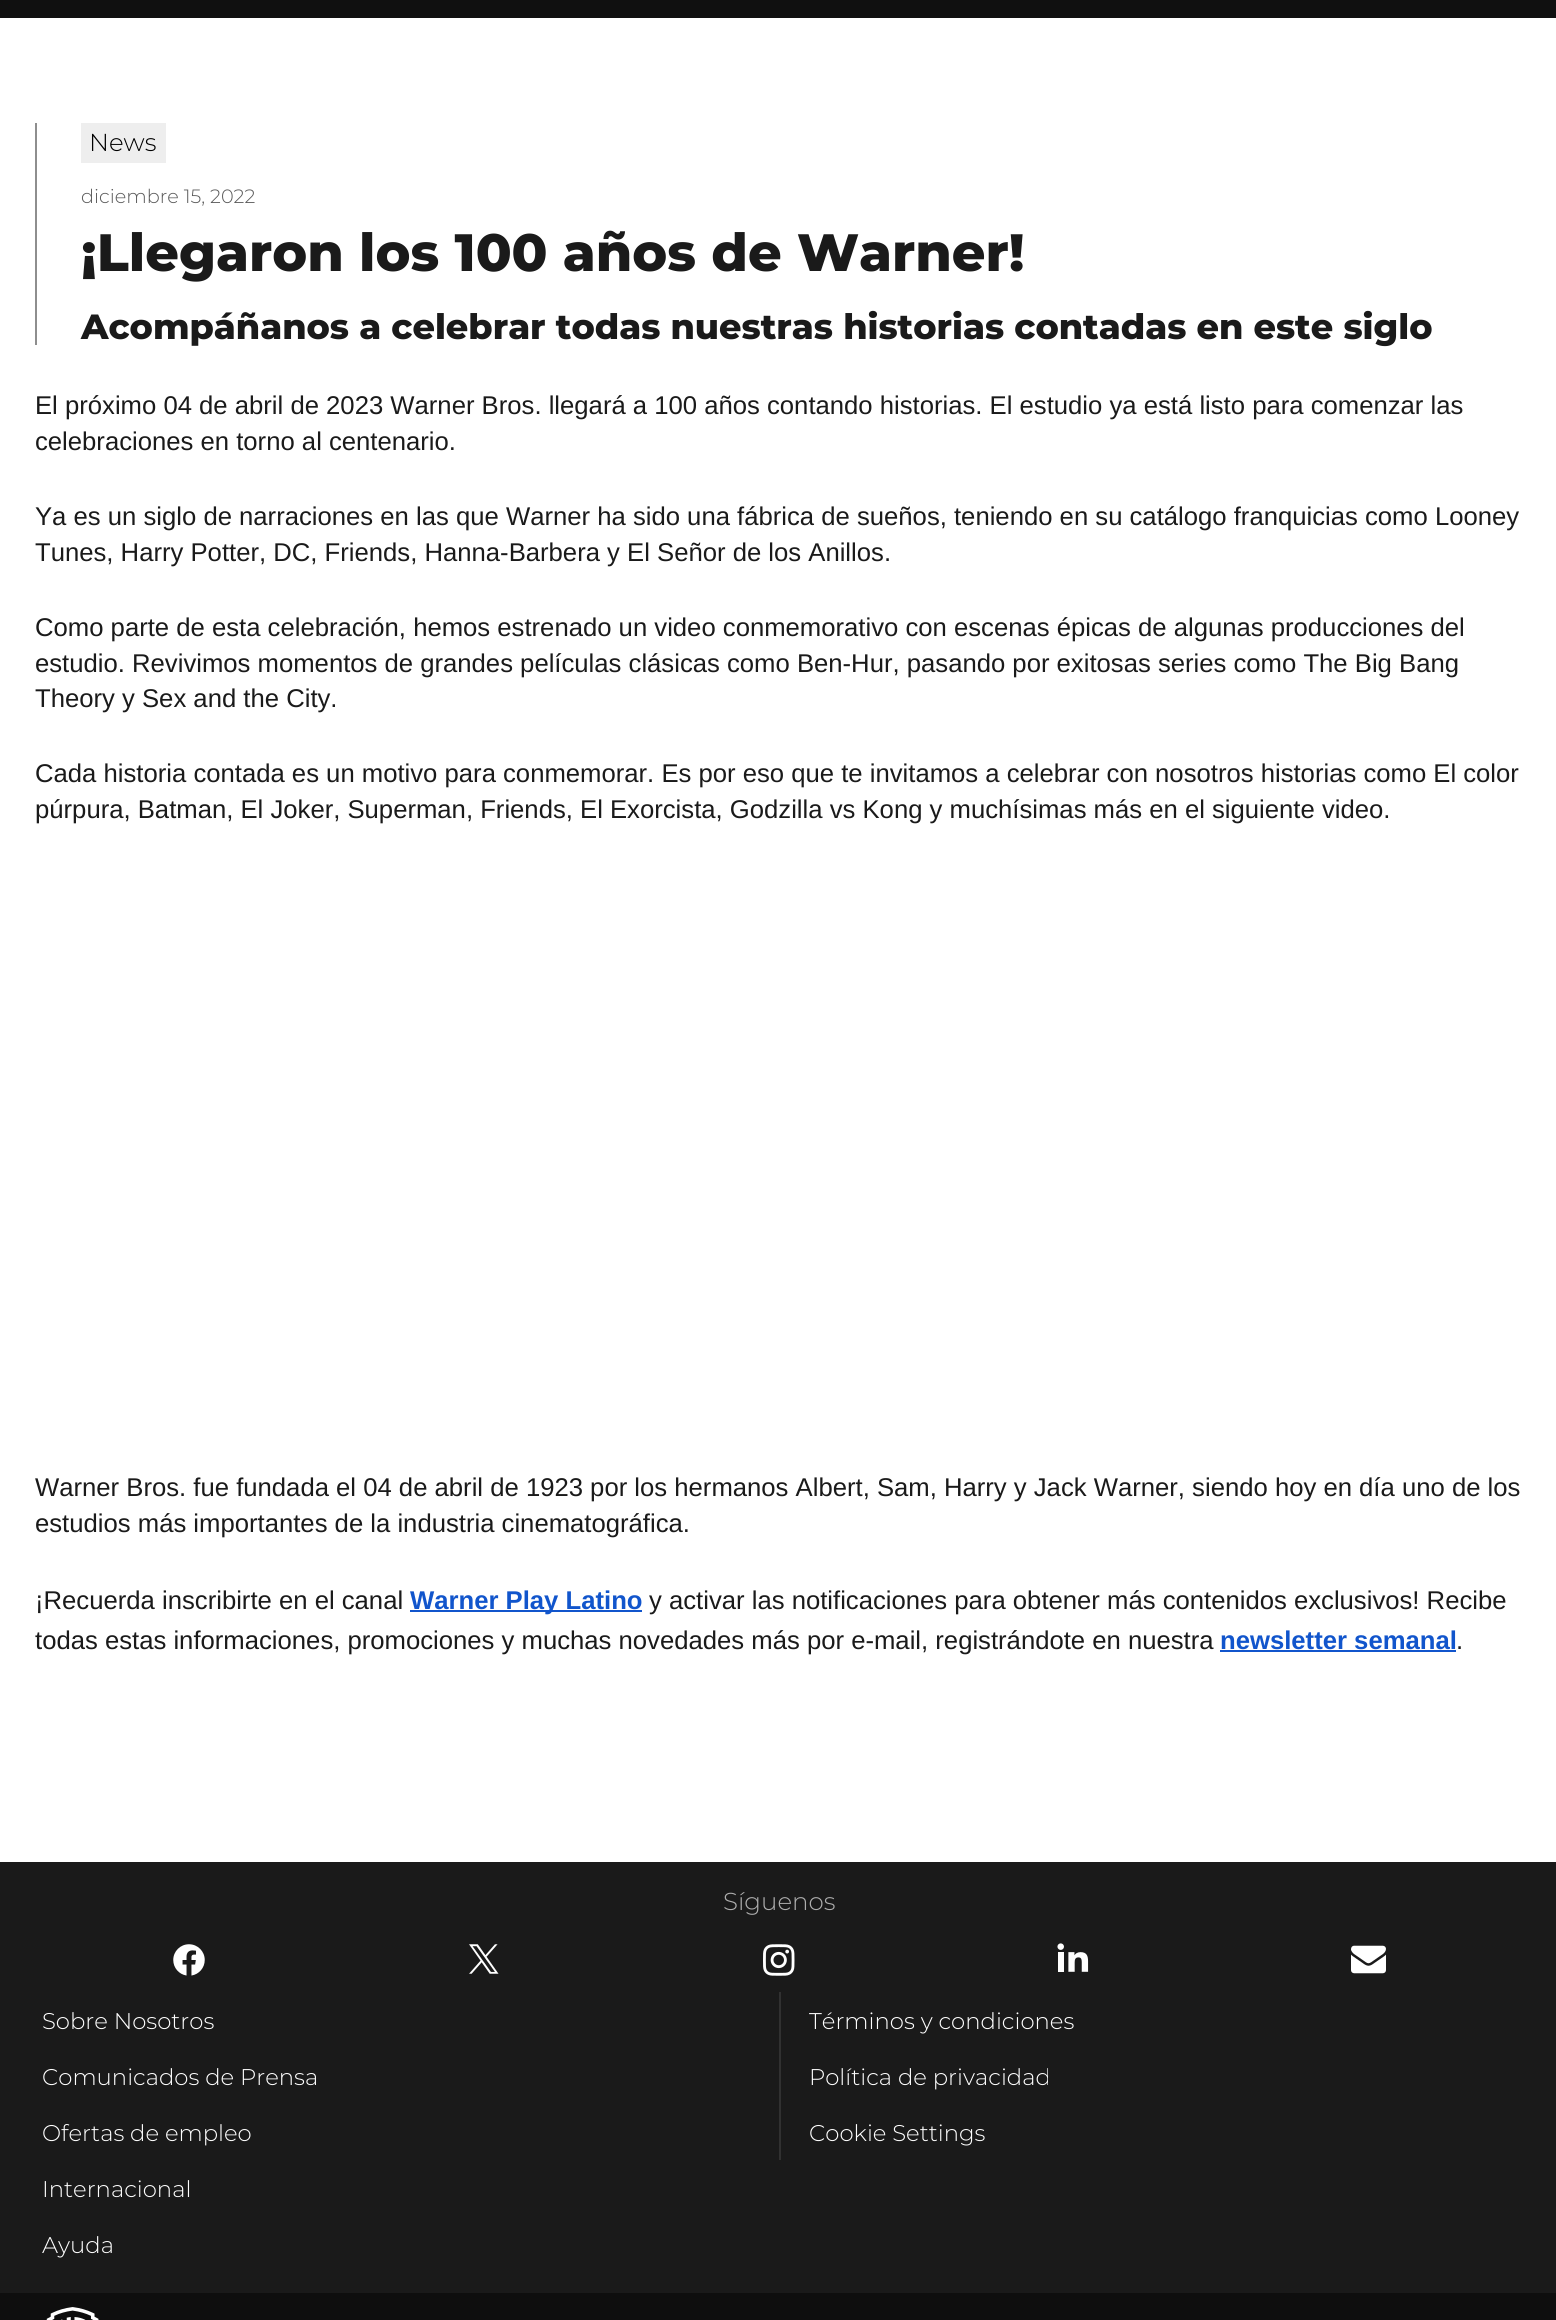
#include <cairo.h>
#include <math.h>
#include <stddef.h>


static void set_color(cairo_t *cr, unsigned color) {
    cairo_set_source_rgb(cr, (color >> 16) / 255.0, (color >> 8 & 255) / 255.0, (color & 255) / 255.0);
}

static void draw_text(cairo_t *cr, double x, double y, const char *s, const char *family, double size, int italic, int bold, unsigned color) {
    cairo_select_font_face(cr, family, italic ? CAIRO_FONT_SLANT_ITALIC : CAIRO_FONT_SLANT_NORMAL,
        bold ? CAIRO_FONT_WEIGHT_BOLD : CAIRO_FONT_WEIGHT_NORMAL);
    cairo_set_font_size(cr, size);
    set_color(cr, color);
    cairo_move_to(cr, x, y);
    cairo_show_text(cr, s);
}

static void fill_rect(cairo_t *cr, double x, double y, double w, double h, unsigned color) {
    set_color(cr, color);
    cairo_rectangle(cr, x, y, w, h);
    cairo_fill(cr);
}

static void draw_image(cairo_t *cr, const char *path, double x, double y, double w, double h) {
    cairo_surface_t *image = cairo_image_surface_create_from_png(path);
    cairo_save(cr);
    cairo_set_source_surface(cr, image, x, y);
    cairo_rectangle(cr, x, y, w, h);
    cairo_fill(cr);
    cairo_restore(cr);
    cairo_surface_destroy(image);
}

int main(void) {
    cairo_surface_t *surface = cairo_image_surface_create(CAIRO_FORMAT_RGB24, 1556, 2320);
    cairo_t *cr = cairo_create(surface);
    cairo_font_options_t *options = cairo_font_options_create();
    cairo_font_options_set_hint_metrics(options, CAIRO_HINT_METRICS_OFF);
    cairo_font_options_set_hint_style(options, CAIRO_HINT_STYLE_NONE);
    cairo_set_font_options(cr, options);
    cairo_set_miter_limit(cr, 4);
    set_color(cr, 0xFFFFFF);
    cairo_paint(cr);
    fill_rect(cr, 0, 0, 1556, 18, 0x101010);
    fill_rect(cr, 35, 123, 2, 222, 0x8E8E8E);
    fill_rect(cr, 81, 123, 85, 40, 0xEEEEEE);
    draw_text(cr, 89, 151, "News", "Montserrat Light", 24.5, 0, 0, 0x000000);
    draw_text(cr, 81, 203, "diciembre 15, 2022", "Montserrat Light", 19.25, 0, 0, 0x595959);
    draw_text(cr, 81, 271, "¡Llegaron los 100 años de Warner!", "Montserrat ExtraBold", 52.5, 0, 0, 0x1A1A1A);
    draw_text(cr, 81, 339, "Acompáñanos a celebrar todas nuestras historias contadas en este siglo", "Montserrat ExtraBold", 35, 0, 0, 0x1A1A1A);
    draw_text(cr, 35, 414, "El próximo 04 de abril de 2023 Warner Bros. llegará a 100 años contando historias. El estudio ya está listo para comenzar las", "Liberation Sans", 25.67, 0, 0, 0x1A1A1A);
    draw_text(cr, 35, 450, "celebraciones en torno al centenario.", "Liberation Sans", 25.67, 0, 0, 0x1A1A1A);
    draw_text(cr, 35, 525, "Ya es un siglo de narraciones en las que Warner ha sido una fábrica de sueños, teniendo en su catálogo franquicias como Looney", "Liberation Sans", 25.67, 0, 0, 0x1A1A1A);
    draw_text(cr, 35, 561, "Tunes, Harry Potter, DC, Friends, Hanna-Barbera y El Señor de los Anillos.", "Liberation Sans", 25.67, 0, 0, 0x1A1A1A);
    draw_text(cr, 35, 636, "Como parte de esta celebración, hemos estrenado un video conmemorativo con escenas épicas de algunas producciones del", "Liberation Sans", 25.67, 0, 0, 0x1A1A1A);
    draw_text(cr, 35, 672, "estudio. Revivimos momentos de grandes películas clásicas como Ben-Hur, pasando por exitosas series como The Big Bang", "Liberation Sans", 25.67, 0, 0, 0x1A1A1A);
    draw_text(cr, 35, 707, "Theory y Sex and the City.", "Liberation Sans", 25.67, 0, 0, 0x1A1A1A);
    draw_text(cr, 35, 782, "Cada historia contada es un motivo para conmemorar. Es por eso que te invitamos a celebrar con nosotros historias como El color", "Liberation Sans", 25.67, 0, 0, 0x1A1A1A);
    draw_text(cr, 35, 818, "púrpura, Batman, El Joker, Superman, Friends, El Exorcista, Godzilla vs Kong y muchísimas más en el siguiente video.", "Liberation Sans", 25.67, 0, 0, 0x1A1A1A);
    draw_text(cr, 35, 1496, "Warner Bros. fue fundada el 04 de abril de 1923 por los hermanos Albert, Sam, Harry y Jack Warner, siendo hoy en día uno de los", "Liberation Sans", 25.67, 0, 0, 0x1A1A1A);
    draw_text(cr, 35, 1532, "estudios más importantes de la industria cinematográfica.", "Liberation Sans", 25.67, 0, 0, 0x1A1A1A);
    draw_text(cr, 35, 1609, "¡Recuerda inscribirte en el canal", "Liberation Sans", 25.67, 0, 0, 0x1A1A1A);
    fill_rect(cr, 410, 1610, 232, 2, 0x1155CC);
    draw_text(cr, 410, 1609, "Warner Play Latino", "Liberation Sans", 25.67, 0, 1, 0x1155CC);
    draw_text(cr, 649, 1609, "y activar las notificaciones para obtener más contenidos exclusivos! Recibe", "Liberation Sans", 25.67, 0, 0, 0x1A1A1A);
    draw_text(cr, 35, 1649, "todas estas informaciones, promociones y muchas novedades más por e-mail, registrándote en nuestra", "Liberation Sans", 25.67, 0, 0, 0x1A1A1A);
    draw_text(cr, 1220, 1649, "newsletter semanal", "Liberation Sans", 25.67, 0, 1, 0x1155CC);
    draw_text(cr, 1456, 1649, ".", "Liberation Sans", 25.67, 0, 0, 0x1A1A1A);
    fill_rect(cr, 1220, 1650, 236, 2, 0x1155CC);
    fill_rect(cr, 0, 1862, 1556, 431, 0x1A1A1A);
    draw_text(cr, 723, 1910, "Síguenos", "Montserrat Light", 24.5, 0, 0, 0xAEAEAE);
    draw_image(cr, "assets/img1.png", 173, 1944, 32, 32);
    draw_image(cr, "assets/img2.png", 469, 1944, 30, 30);
    draw_image(cr, "assets/img3.png", 763, 1944, 32, 32);
    draw_image(cr, "assets/img4.png", 1057, 1943, 32, 29);
    draw_image(cr, "assets/img5.png", 1351, 1945, 35, 29);
    draw_text(cr, 42, 2029, "Sobre Nosotros", "Montserrat Light", 22.75, 0, 0, 0xFFFFFF);
    draw_text(cr, 42, 2085, "Comunicados de Prensa", "Montserrat Light", 22.75, 0, 0, 0xFFFFFF);
    draw_text(cr, 42, 2141, "Ofertas de empleo", "Montserrat Light", 22.75, 0, 0, 0xFFFFFF);
    draw_text(cr, 42, 2197, "Internacional", "Montserrat Light", 22.75, 0, 0, 0xFFFFFF);
    draw_text(cr, 42, 2253, "Ayuda", "Montserrat Light", 22.75, 0, 0, 0xFFFFFF);
    fill_rect(cr, 779, 1992, 2, 168, 0x313131);
    draw_text(cr, 809, 2029, "Términos y condiciones", "Montserrat Light", 22.75, 0, 0, 0xFFFFFF);
    draw_text(cr, 809, 2085, "Política de privacidad", "Montserrat Light", 22.75, 0, 0, 0xFFFFFF);
    draw_text(cr, 809, 2141, "Cookie Settings", "Montserrat Light", 22.75, 0, 0, 0xFFFFFF);
    fill_rect(cr, 0, 2293, 1556, 27, 0x0E0E0E);
    draw_image(cr, "assets/img6.png", 46, 2307, 53, 13);
    cairo_surface_write_to_png(surface, "output.png");
    cairo_font_options_destroy(options);
    cairo_destroy(cr);
    cairo_surface_destroy(surface);
    return 0;
}
